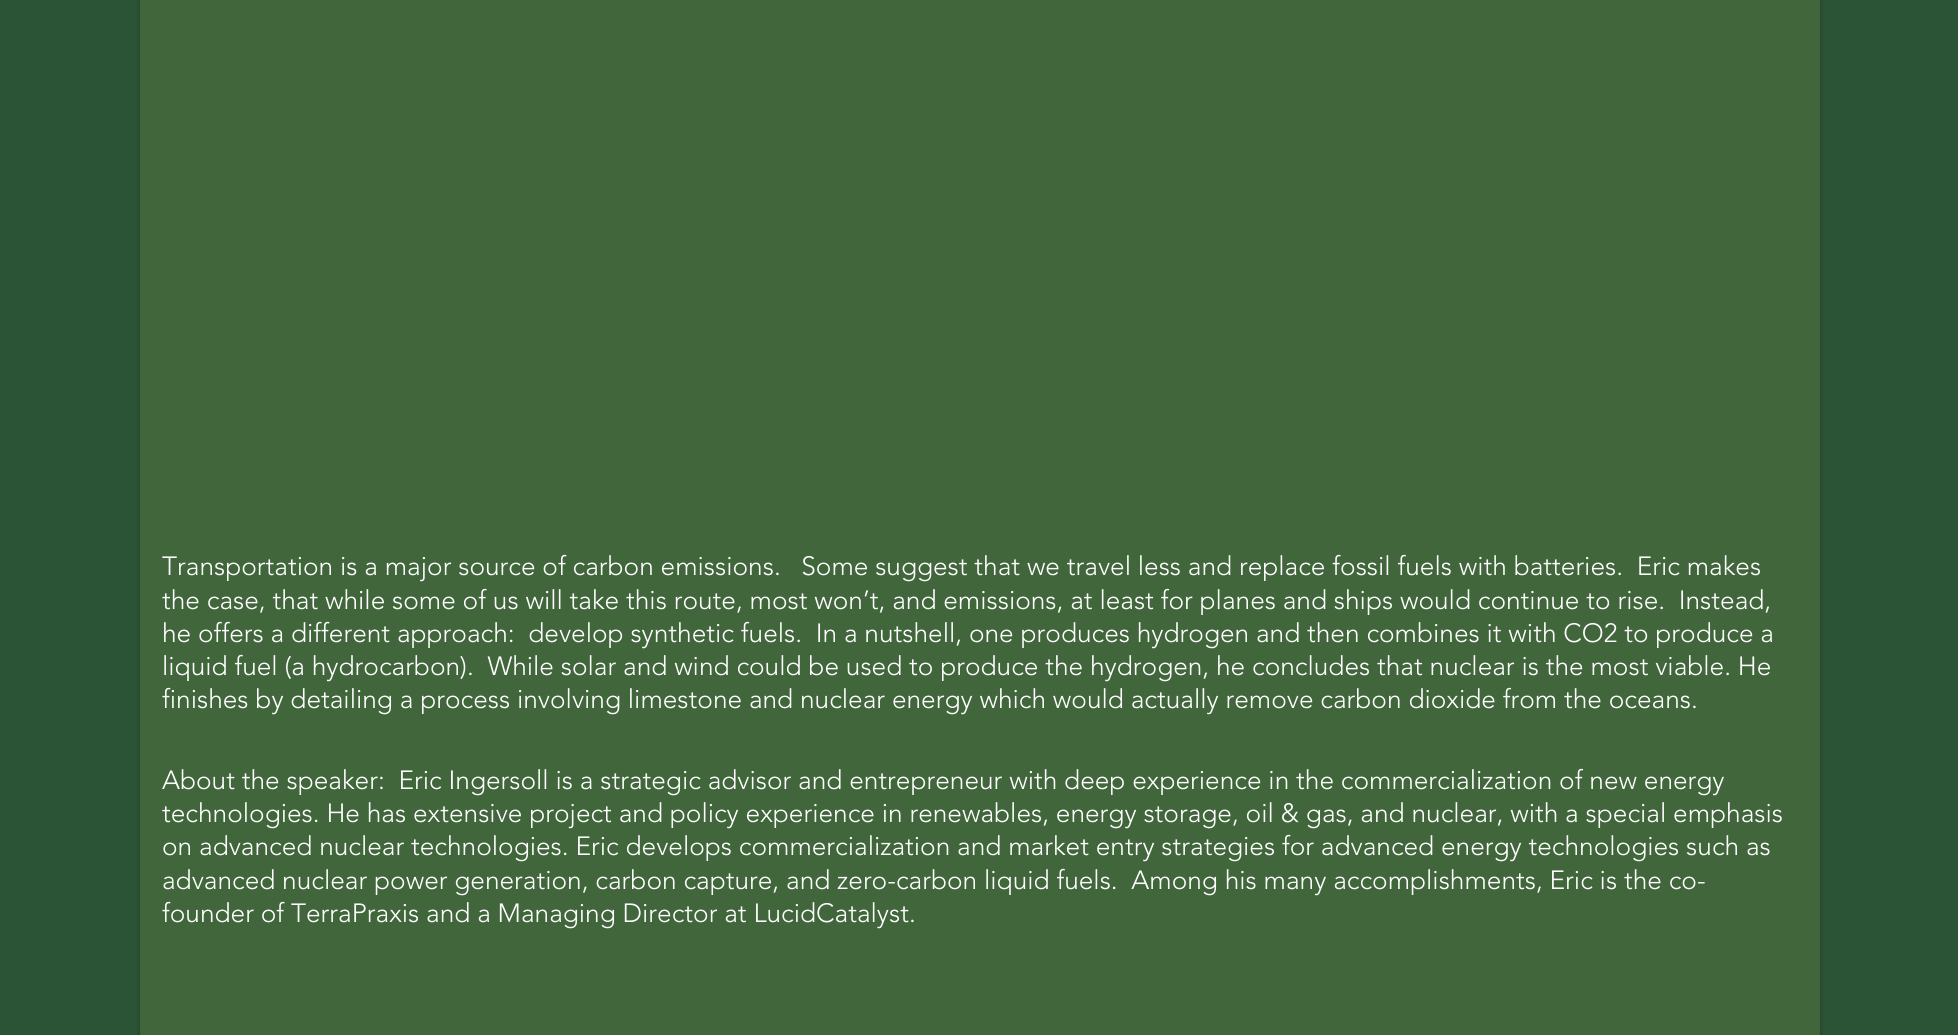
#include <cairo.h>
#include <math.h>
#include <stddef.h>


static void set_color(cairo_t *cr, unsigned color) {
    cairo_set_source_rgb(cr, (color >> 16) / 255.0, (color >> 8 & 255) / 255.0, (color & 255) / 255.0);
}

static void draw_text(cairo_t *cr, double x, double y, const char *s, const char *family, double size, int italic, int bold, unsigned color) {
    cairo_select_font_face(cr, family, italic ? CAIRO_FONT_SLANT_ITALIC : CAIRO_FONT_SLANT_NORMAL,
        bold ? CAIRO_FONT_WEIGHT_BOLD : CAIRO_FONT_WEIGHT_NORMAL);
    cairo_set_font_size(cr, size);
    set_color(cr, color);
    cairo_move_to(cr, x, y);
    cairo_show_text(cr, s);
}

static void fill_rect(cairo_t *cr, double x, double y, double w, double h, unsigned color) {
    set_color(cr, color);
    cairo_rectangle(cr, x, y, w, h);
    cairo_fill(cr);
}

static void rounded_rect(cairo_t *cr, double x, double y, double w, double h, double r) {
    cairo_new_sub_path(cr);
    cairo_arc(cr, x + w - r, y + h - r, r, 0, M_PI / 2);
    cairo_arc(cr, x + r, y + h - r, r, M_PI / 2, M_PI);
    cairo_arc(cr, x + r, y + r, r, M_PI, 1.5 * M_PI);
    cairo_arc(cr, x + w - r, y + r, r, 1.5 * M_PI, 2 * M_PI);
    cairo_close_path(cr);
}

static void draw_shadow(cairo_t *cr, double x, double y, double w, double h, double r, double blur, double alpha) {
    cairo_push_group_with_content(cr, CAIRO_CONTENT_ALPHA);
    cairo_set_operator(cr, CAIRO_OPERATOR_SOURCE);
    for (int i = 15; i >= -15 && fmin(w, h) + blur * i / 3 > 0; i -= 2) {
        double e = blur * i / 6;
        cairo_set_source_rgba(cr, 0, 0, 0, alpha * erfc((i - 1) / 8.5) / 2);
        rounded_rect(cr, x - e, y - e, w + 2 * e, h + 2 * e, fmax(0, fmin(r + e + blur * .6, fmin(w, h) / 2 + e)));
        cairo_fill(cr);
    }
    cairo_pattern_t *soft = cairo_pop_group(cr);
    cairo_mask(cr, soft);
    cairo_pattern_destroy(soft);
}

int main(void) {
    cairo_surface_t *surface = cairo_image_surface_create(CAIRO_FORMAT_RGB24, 1958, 1035);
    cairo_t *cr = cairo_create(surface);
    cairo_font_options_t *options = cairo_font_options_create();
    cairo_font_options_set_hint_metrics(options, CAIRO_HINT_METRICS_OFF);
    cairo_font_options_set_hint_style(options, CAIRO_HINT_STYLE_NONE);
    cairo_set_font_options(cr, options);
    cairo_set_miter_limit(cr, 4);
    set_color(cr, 0x2B5336);
    cairo_paint(cr);
    set_color(cr, 0x000000);
    draw_shadow(cr, 140, -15, 1680, 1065, 9, 2, 0.3);
    fill_rect(cr, 140, 0, 1680, 1035, 0x41663C);
    draw_text(cr, 162, 575, "Transportation is a major source of carbon emissions.   Some suggest that we travel less and replace fossil fuels with batteries.  Eric makes", "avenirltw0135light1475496 Light", 26.25, 0, 0, 0xFFFFFF);
    draw_text(cr, 162, 609, "the case, that while some of us will take this route, most won’t, and emissions, at least for planes and ships would continue to rise.  Instead,", "avenirltw0135light1475496 Light", 26.25, 0, 0, 0xFFFFFF);
    draw_text(cr, 162, 642, "he offers a different approach:  develop synthetic fuels.  In a nutshell, one produces hydrogen and then combines it with CO2 to produce a", "avenirltw0135light1475496 Light", 26.25, 0, 0, 0xFFFFFF);
    draw_text(cr, 162, 675, "liquid fuel (a hydrocarbon).  While solar and wind could be used to produce the hydrogen, he concludes that nuclear is the most viable. He", "avenirltw0135light1475496 Light", 26.25, 0, 0, 0xFFFFFF);
    draw_text(cr, 162, 708, "finishes by detailing a process involving limestone and nuclear energy which would actually remove carbon dioxide from the oceans.", "avenirltw0135light1475496 Light", 26.25, 0, 0, 0xFFFFFF);
    draw_text(cr, 162, 789, "About the speaker:  Eric Ingersoll is a strategic advisor and entrepreneur with deep experience in the commercialization of new energy", "avenirltw0135light1475496 Light", 26.25, 0, 0, 0xFFFFFF);
    draw_text(cr, 162, 822, "technologies. He has extensive project and policy experience in renewables, energy storage, oil & gas, and nuclear, with a special emphasis", "avenirltw0135light1475496 Light", 26.25, 0, 0, 0xFFFFFF);
    draw_text(cr, 162, 855, "on advanced nuclear technologies. Eric develops commercialization and market entry strategies for advanced energy technologies such as", "avenirltw0135light1475496 Light", 26.25, 0, 0, 0xFFFFFF);
    draw_text(cr, 162, 889, "advanced nuclear power generation, carbon capture, and zero-carbon liquid fuels.  Among his many accomplishments, Eric is the co-", "avenirltw0135light1475496 Light", 26.25, 0, 0, 0xFFFFFF);
    draw_text(cr, 162, 922, "founder of TerraPraxis and a Managing Director at LucidCatalyst.", "avenirltw0135light1475496 Light", 26.25, 0, 0, 0xFFFFFF);
    cairo_surface_write_to_png(surface, "output.png");
    cairo_font_options_destroy(options);
    cairo_destroy(cr);
    cairo_surface_destroy(surface);
    return 0;
}
